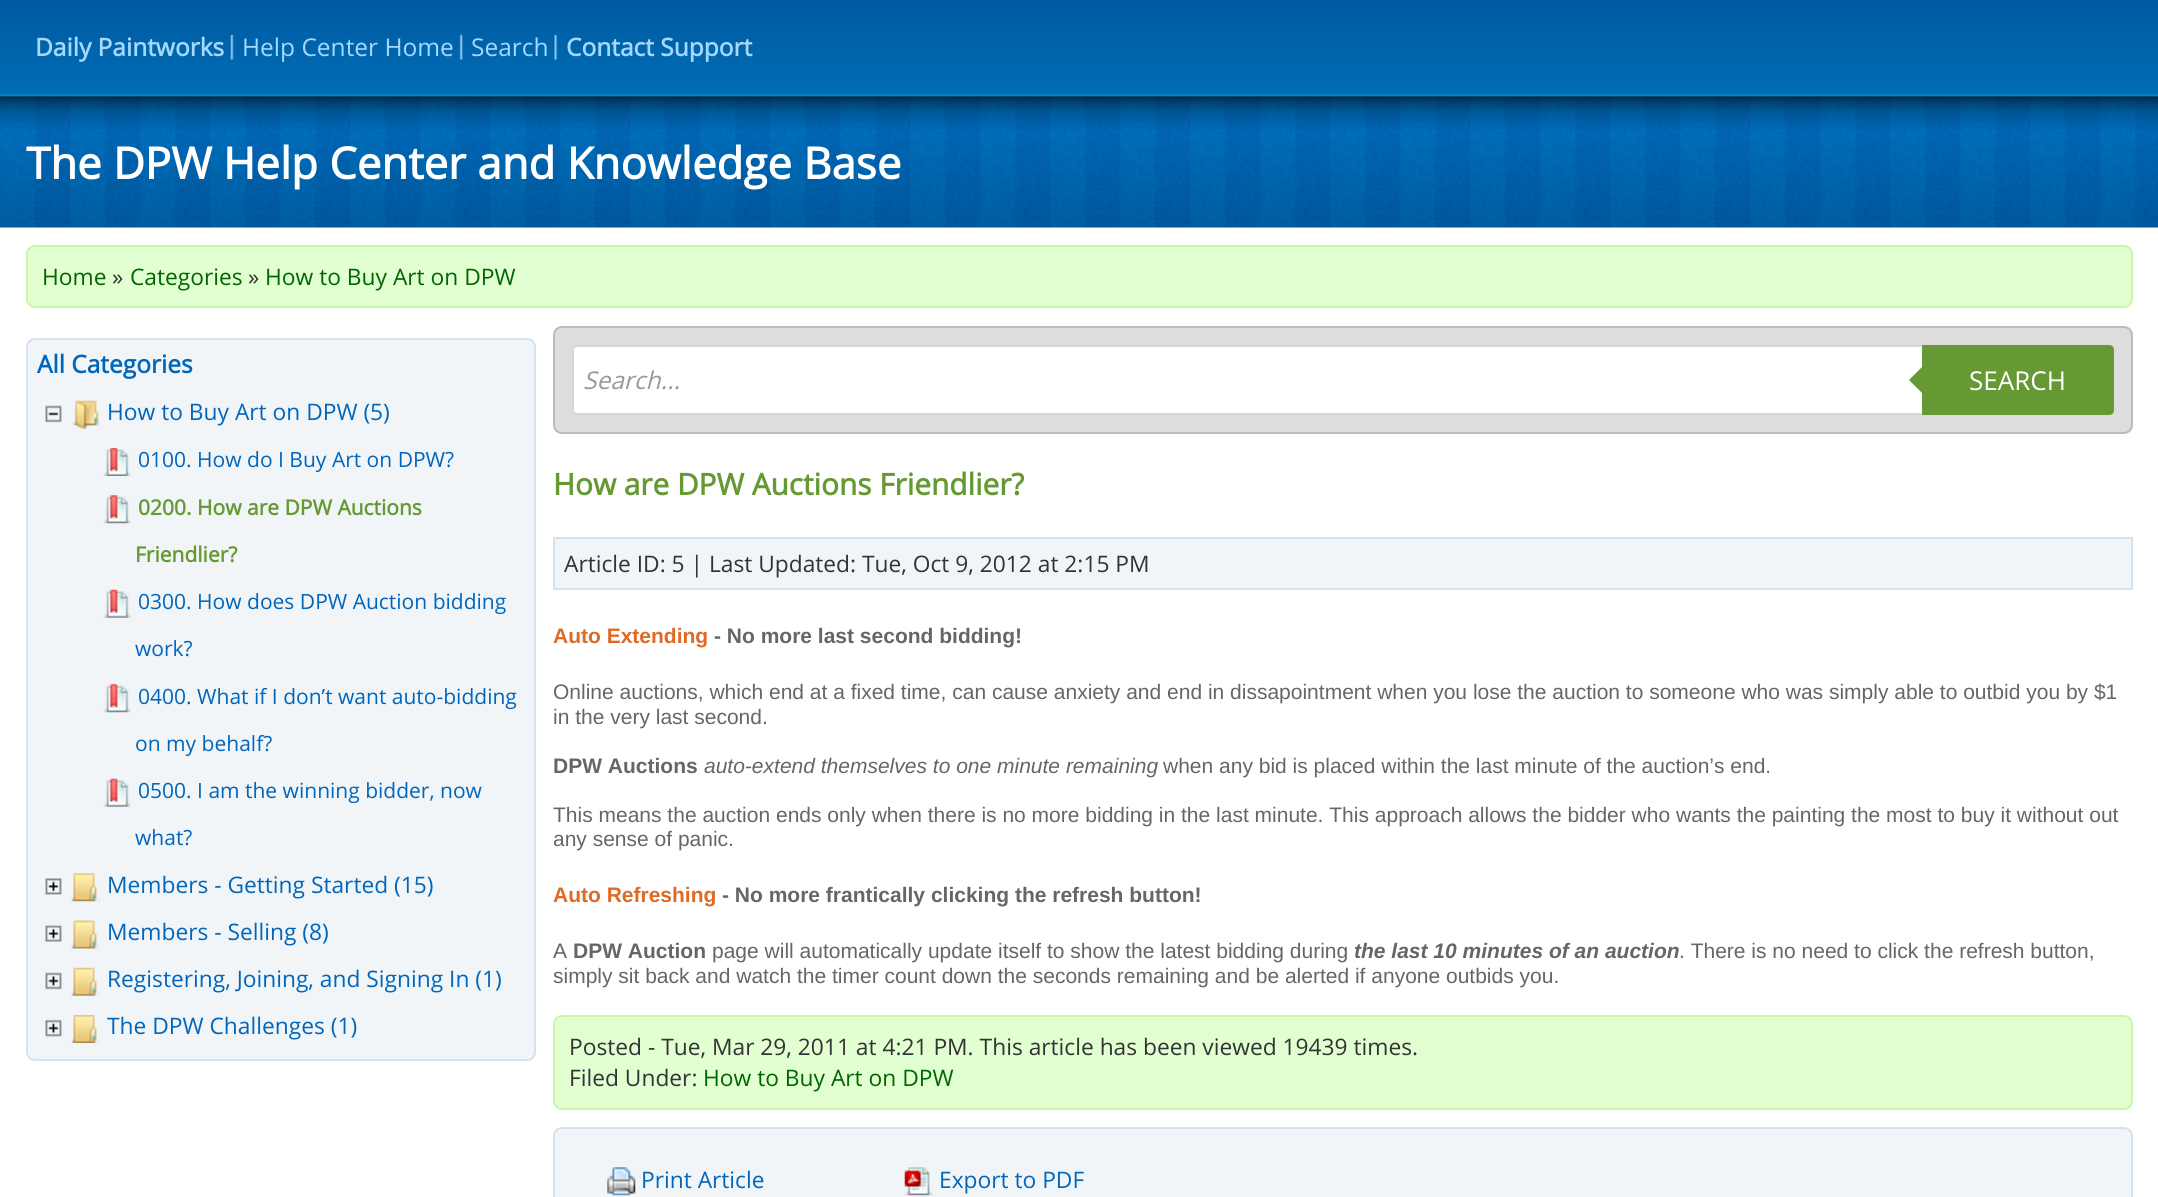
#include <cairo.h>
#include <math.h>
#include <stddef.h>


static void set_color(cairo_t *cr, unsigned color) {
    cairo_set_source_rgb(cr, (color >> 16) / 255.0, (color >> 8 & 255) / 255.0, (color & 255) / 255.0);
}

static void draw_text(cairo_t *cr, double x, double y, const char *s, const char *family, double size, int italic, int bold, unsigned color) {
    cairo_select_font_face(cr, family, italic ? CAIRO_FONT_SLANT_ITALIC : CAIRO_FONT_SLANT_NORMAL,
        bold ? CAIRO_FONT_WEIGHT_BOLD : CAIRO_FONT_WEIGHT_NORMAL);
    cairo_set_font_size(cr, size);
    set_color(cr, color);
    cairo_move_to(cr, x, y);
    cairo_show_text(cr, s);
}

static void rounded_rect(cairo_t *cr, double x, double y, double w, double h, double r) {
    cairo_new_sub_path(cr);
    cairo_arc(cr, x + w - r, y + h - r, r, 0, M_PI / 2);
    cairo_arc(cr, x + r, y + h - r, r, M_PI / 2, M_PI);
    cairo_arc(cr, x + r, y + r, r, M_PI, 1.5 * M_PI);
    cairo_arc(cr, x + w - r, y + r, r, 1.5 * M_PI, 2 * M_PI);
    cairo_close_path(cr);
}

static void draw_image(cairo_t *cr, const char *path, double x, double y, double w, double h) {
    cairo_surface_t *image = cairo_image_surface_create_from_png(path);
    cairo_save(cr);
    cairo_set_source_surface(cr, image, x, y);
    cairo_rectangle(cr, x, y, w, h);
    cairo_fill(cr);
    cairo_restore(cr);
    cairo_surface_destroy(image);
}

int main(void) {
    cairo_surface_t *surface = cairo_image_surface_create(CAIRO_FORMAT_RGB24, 2158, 1197);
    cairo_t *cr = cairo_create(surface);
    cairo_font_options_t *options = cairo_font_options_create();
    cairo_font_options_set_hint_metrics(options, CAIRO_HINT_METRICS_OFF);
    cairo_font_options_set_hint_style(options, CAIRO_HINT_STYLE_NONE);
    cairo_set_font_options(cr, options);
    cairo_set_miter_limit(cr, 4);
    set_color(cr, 0xFFFFFF);
    cairo_paint(cr);
    draw_image(cr, "assets/img1.png", 0, 95, 2158, 133);
    draw_image(cr, "assets/img2.png", 0, 0, 2158, 130);
    draw_image(cr, "assets/img3.png", 230, 35, 4, 25);
    draw_text(cr, 35, 56, "Daily Paintworks", "Open Sans", 24.5, 0, 1, 0xA4D8FF);
    draw_image(cr, "assets/img4.png", 459, 34, 4, 26);
    draw_text(cr, 242, 56, "Help Center Home", "Open Sans", 24.5, 0, 0, 0xA4D8FF);
    draw_image(cr, "assets/img5.png", 554, 35, 4, 25);
    draw_text(cr, 471, 56, "Search", "Open Sans", 24.5, 0, 0, 0xA4D8FF);
    draw_text(cr, 566, 56, "Contact Support", "Open Sans", 24.5, 0, 1, 0xA4D8FF);
    draw_text(cr, 26, 179, "The DPW Help Center and Knowledge Base", "Open Sans", 43.75, 0, 1, 0xFFFFFF);
    set_color(cr, 0xE1FFD1);
    rounded_rect(cr, 27, 246, 2105, 61, 8);
    cairo_fill_preserve(cr);
    set_color(cr, 0xC5F8AC);
    cairo_stroke(cr);
    draw_text(cr, 42, 285, "Home", "Open Sans", 22.75, 0, 0, 0x006600);
    draw_text(cr, 112, 285, "»", "Open Sans", 22.75, 0, 0, 0x333333);
    draw_text(cr, 130, 285, "Categories", "Open Sans", 22.75, 0, 0, 0x006600);
    draw_text(cr, 248, 285, "»", "Open Sans", 22.75, 0, 0, 0x333333);
    draw_text(cr, 265, 285, "How to Buy Art on DPW", "Open Sans", 22.75, 0, 0, 0x006600);
    set_color(cr, 0xF1F5F8);
    rounded_rect(cr, 27, 339, 508, 721, 8);
    cairo_fill_preserve(cr);
    set_color(cr, 0xD5E2F1);
    cairo_stroke(cr);
    draw_text(cr, 37, 373, "All Categories", "Open Sans", 24.5, 0, 1, 0x0066BC);
    draw_image(cr, "assets/img6.png", 45, 405, 17, 18);
    draw_image(cr, "assets/img7.png", 72, 400, 28, 29);
    draw_text(cr, 107, 420, "How to Buy Art on DPW (5)", "Open Sans", 22.75, 0, 0, 0x0066BC);
    draw_image(cr, "assets/img8.png", 103, 448, 28, 28);
    draw_text(cr, 138, 467, "0100. How do I Buy Art on DPW?", "Open Sans", 21, 0, 0, 0x0066BC);
    draw_image(cr, "assets/img9.png", 103, 495, 28, 29);
    draw_text(cr, 138, 515, "0200. How are DPW Auctions", "Open Sans", 21, 0, 1, 0x669933);
    draw_text(cr, 135, 562, "Friendlier?", "Open Sans", 21, 0, 1, 0x669933);
    draw_image(cr, "assets/img10.png", 103, 589, 28, 29);
    draw_text(cr, 138, 609, "0300. How does DPW Auction bidding", "Open Sans", 21, 0, 0, 0x0066BC);
    draw_text(cr, 135, 656, "work?", "Open Sans", 21, 0, 0, 0x0066BC);
    draw_image(cr, "assets/img9.png", 103, 684, 28, 29);
    draw_text(cr, 138, 704, "0400. What if I don’t want auto-bidding", "Open Sans", 21, 0, 0, 0x0066BC);
    draw_text(cr, 135, 751, "on my behalf?", "Open Sans", 21, 0, 0, 0x0066BC);
    draw_image(cr, "assets/img10.png", 103, 778, 28, 29);
    draw_text(cr, 138, 798, "0500. I am the winning bidder, now", "Open Sans", 21, 0, 0, 0x0066BC);
    draw_text(cr, 135, 845, "what?", "Open Sans", 21, 0, 0, 0x0066BC);
    draw_image(cr, "assets/img11.png", 45, 878, 17, 17);
    draw_image(cr, "assets/img12.png", 71, 873, 29, 29);
    draw_text(cr, 107, 893, "Members - Getting Started (15)", "Open Sans", 22.75, 0, 0, 0x0066BC);
    draw_image(cr, "assets/img13.png", 45, 925, 17, 17);
    draw_image(cr, "assets/img14.png", 71, 920, 29, 29);
    draw_text(cr, 107, 940, "Members - Selling (8)", "Open Sans", 22.75, 0, 0, 0x0066BC);
    draw_image(cr, "assets/img15.png", 45, 972, 17, 18);
    draw_image(cr, "assets/img16.png", 71, 967, 29, 29);
    draw_text(cr, 107, 987, "Registering, Joining, and Signing In (1)", "Open Sans", 22.75, 0, 0, 0x0066BC);
    draw_image(cr, "assets/img17.png", 45, 1019, 17, 18);
    draw_image(cr, "assets/img18.png", 71, 1015, 29, 28);
    draw_text(cr, 107, 1034, "The DPW Challenges (1)", "Open Sans", 22.75, 0, 0, 0x0066BC);
    set_color(cr, 0xDDDDDD);
    rounded_rect(cr, 554, 327, 1578, 106, 8);
    cairo_fill_preserve(cr);
    set_color(cr, 0xBBBBBB);
    cairo_stroke(cr);
    set_color(cr, 0xFFFFFF);
    cairo_new_path(cr);
    cairo_move_to(cr, 577, 346);
    cairo_line_to(cr, 2097, 346);
    cairo_line_to(cr, 2097, 414);
    cairo_line_to(cr, 577, 414);
    cairo_curve_to(cr, 575, 414, 573, 412, 573, 410);
    cairo_line_to(cr, 573, 350);
    cairo_curve_to(cr, 573, 348, 575, 346, 577, 346);
    cairo_close_path(cr);
    cairo_fill_preserve(cr);
    set_color(cr, 0xD7D7D7);
    cairo_stroke(cr);
    draw_text(cr, 583, 389, "Search...", "Open Sans", 24.5, 1, 0, 0x999999);
    set_color(cr, 0x669933);
    cairo_new_path(cr);
    cairo_move_to(cr, 1922, 345);
    cairo_line_to(cr, 2109, 345);
    cairo_curve_to(cr, 2112, 345, 2114, 347, 2114, 350);
    cairo_line_to(cr, 2114, 410);
    cairo_curve_to(cr, 2114, 413, 2112, 415, 2109, 415);
    cairo_line_to(cr, 1922, 415);
    cairo_close_path(cr);
    cairo_fill(cr);
    cairo_new_path(cr);
    cairo_move_to(cr, 1923, 366);
    cairo_line_to(cr, 1923, 394);
    cairo_line_to(cr, 1909, 380);
    cairo_close_path(cr);
    cairo_fill(cr);
    draw_text(cr, 1969, 390, "SEARCH", "Open Sans", 26, 0, 0, 0xFFFFFF);
    draw_text(cr, 553, 495, "How are DPW Auctions Friendlier?", "Open Sans", 29.75, 0, 1, 0x669933);
    set_color(cr, 0xF1F5F8);
    cairo_rectangle(cr, 554, 538, 1578, 51);
    cairo_fill_preserve(cr);
    set_color(cr, 0xD5E2F1);
    cairo_stroke(cr);
    draw_text(cr, 564, 572, "Article ID: 5 | Last Updated: Tue, Oct 9, 2012 at 2:15 PM", "Open Sans", 22.75, 0, 0, 0x333333);
    draw_text(cr, 553, 643, "Auto Extending", "Liberation Sans", 21, 0, 1, 0xDF6A23);
    draw_text(cr, 714, 643, "- No more last second bidding!", "Liberation Sans", 21, 0, 1, 0x666666);
    draw_text(cr, 553, 699, "Online auctions, which end at a fixed time, can cause anxiety and end in dissapointment when you lose the auction to someone who was simply able to outbid you by $1", "Liberation Sans", 21, 0, 0, 0x666666);
    draw_text(cr, 553, 724, "in the very last second.", "Liberation Sans", 21, 0, 0, 0x666666);
    draw_text(cr, 553, 773, "DPW Auctions", "Liberation Sans", 21, 0, 1, 0x666666);
    draw_text(cr, 704, 773, "auto-extend themselves to one minute remaining", "Liberation Sans", 21, 1, 0, 0x666666);
    draw_text(cr, 1163, 773, "when any bid is placed within the last minute of the auction’s end.", "Liberation Sans", 21, 0, 0, 0x666666);
    draw_text(cr, 553, 822, "This means the auction ends only when there is no more bidding in the last minute. This approach allows the bidder who wants the painting the most to buy it without out", "Liberation Sans", 21, 0, 0, 0x666666);
    draw_text(cr, 553, 846, "any sense of panic.", "Liberation Sans", 21, 0, 0, 0x666666);
    draw_text(cr, 553, 902, "Auto Refreshing", "Liberation Sans", 21, 0, 1, 0xDF6A23);
    draw_text(cr, 722, 902, "- No more frantically clicking the refresh button!", "Liberation Sans", 21, 0, 1, 0x666666);
    draw_text(cr, 553, 958, "A", "Liberation Sans", 21, 0, 0, 0x666666);
    draw_text(cr, 573, 958, "DPW Auction", "Liberation Sans", 21, 0, 1, 0x666666);
    draw_text(cr, 712, 958, "page will automatically update itself to show the latest bidding during", "Liberation Sans", 21, 0, 0, 0x666666);
    draw_text(cr, 1354, 958, "the last 10 minutes of an auction", "Liberation Sans", 21, 1, 1, 0x666666);
    draw_text(cr, 1679, 958, ". There is no need to click the refresh button,", "Liberation Sans", 21, 0, 0, 0x666666);
    draw_text(cr, 553, 983, "simply sit back and watch the timer count down the seconds remaining and be alerted if anyone outbids you.", "Liberation Sans", 21, 0, 0, 0x666666);
    set_color(cr, 0xE1FFD1);
    rounded_rect(cr, 554, 1016, 1578, 93, 8);
    cairo_fill_preserve(cr);
    set_color(cr, 0xC5F8AC);
    cairo_stroke(cr);
    draw_text(cr, 569, 1055, "Posted - Tue, Mar 29, 2011 at 4:21 PM. This article has been viewed 19439 times.", "Open Sans", 22.75, 0, 0, 0x333333);
    draw_text(cr, 569, 1086, "Filed Under:", "Open Sans", 22.75, 0, 0, 0x333333);
    draw_text(cr, 703, 1086, "How to Buy Art on DPW", "Open Sans", 22.75, 0, 0, 0x006600);
    set_color(cr, 0xF1F5F8);
    rounded_rect(cr, 554, 1128, 1578, 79, 8);
    cairo_fill_preserve(cr);
    set_color(cr, 0xD5E2F1);
    cairo_stroke(cr);
    draw_image(cr, "assets/img19.png", 607, 1167, 29, 29);
    draw_text(cr, 641, 1188, "Print Article", "Open Sans", 22.75, 0, 0, 0x0066BC);
    draw_image(cr, "assets/img20.png", 904, 1167, 29, 29);
    draw_text(cr, 939, 1188, "Export to PDF", "Open Sans", 22.75, 0, 0, 0x0066BC);
    cairo_surface_write_to_png(surface, "output.png");
    cairo_font_options_destroy(options);
    cairo_destroy(cr);
    cairo_surface_destroy(surface);
    return 0;
}
